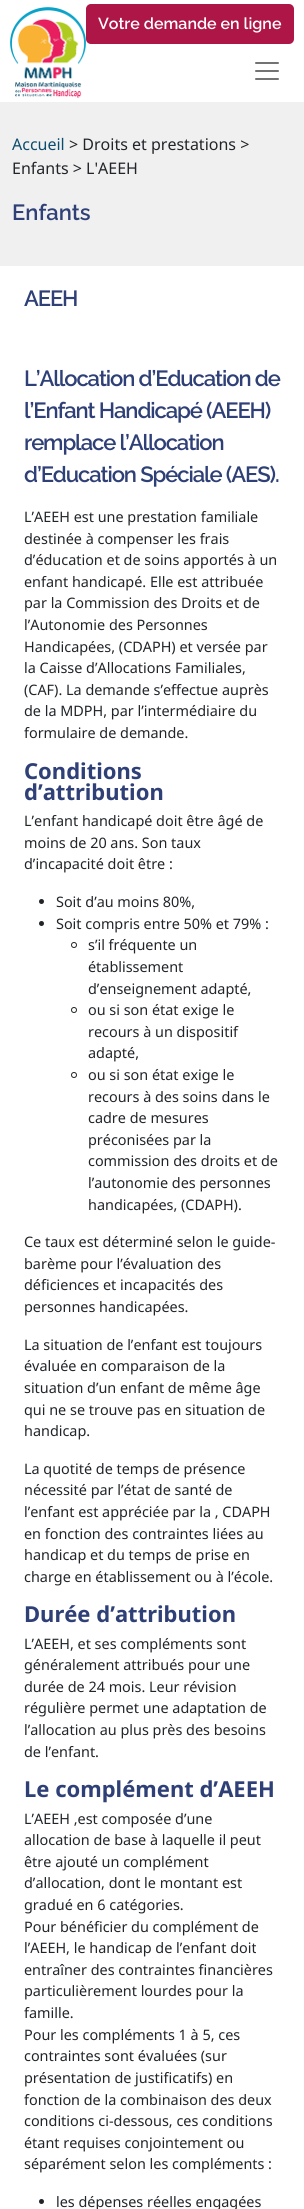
#include <cairo.h>
#include <math.h>
#include <stddef.h>


static void set_color(cairo_t *cr, unsigned color) {
    cairo_set_source_rgb(cr, (color >> 16) / 255.0, (color >> 8 & 255) / 255.0, (color & 255) / 255.0);
}

static void draw_text(cairo_t *cr, double x, double y, const char *s, const char *family, double size, int italic, int bold, unsigned color) {
    cairo_select_font_face(cr, family, italic ? CAIRO_FONT_SLANT_ITALIC : CAIRO_FONT_SLANT_NORMAL,
        bold ? CAIRO_FONT_WEIGHT_BOLD : CAIRO_FONT_WEIGHT_NORMAL);
    cairo_set_font_size(cr, size);
    set_color(cr, color);
    cairo_move_to(cr, x, y);
    cairo_show_text(cr, s);
}

static void draw_spaced(cairo_t *cr, double x, double y, const char *s, double letter, double word) {
    cairo_move_to(cr, x, y);
    while (*s) {
        char ch[5] = {0};
        int n = 0;
        do ch[n++] = *s++; while ((*s & 0xC0) == 0x80);
        cairo_show_text(cr, ch);
        cairo_rel_move_to(cr, letter + word * (*ch == ' '), 0);
    }
}

static void fill_rect(cairo_t *cr, double x, double y, double w, double h, unsigned color) {
    set_color(cr, color);
    cairo_rectangle(cr, x, y, w, h);
    cairo_fill(cr);
}

static void rounded_rect(cairo_t *cr, double x, double y, double w, double h, double r) {
    cairo_new_sub_path(cr);
    cairo_arc(cr, x + w - r, y + h - r, r, 0, M_PI / 2);
    cairo_arc(cr, x + r, y + h - r, r, M_PI / 2, M_PI);
    cairo_arc(cr, x + r, y + r, r, M_PI, 1.5 * M_PI);
    cairo_arc(cr, x + w - r, y + r, r, 1.5 * M_PI, 2 * M_PI);
    cairo_close_path(cr);
}

static void draw_image(cairo_t *cr, const char *path, double x, double y, double w, double h) {
    cairo_surface_t *image = cairo_image_surface_create_from_png(path);
    cairo_save(cr);
    cairo_set_source_surface(cr, image, x, y);
    cairo_rectangle(cr, x, y, w, h);
    cairo_fill(cr);
    cairo_restore(cr);
    cairo_surface_destroy(image);
}

int main(void) {
    cairo_surface_t *surface = cairo_image_surface_create(CAIRO_FORMAT_RGB24, 304, 2209);
    cairo_t *cr = cairo_create(surface);
    cairo_font_options_t *options = cairo_font_options_create();
    cairo_font_options_set_hint_metrics(options, CAIRO_HINT_METRICS_OFF);
    cairo_font_options_set_hint_style(options, CAIRO_HINT_STYLE_NONE);
    cairo_set_font_options(cr, options);
    cairo_set_miter_limit(cr, 4);
    set_color(cr, 0xFFFFFF);
    cairo_paint(cr);
    draw_image(cr, "assets/img1.png", 10, 7, 76, 91);
    set_color(cr, 0xAD1647);
    rounded_rect(cr, 86, 4, 208, 40, 5);
    cairo_fill(cr);
    draw_text(cr, 98, 29, "Votre demande en ligne", "Raleway SemiBold", 16, 0, 0, 0xFFFFFF);
    draw_image(cr, "assets/img2.png", 255, 62, 24, 18);
    fill_rect(cr, 0, 102, 304, 164, 0xF0F0F0);
    draw_text(cr, 12, 150, "Accueil", "Noto Sans", 16, 0, 0, 0x0C4D6D);
    draw_text(cr, 69, 150, "> Droits et prestations >", "Noto Sans", 16, 0, 0, 0x212529);
    draw_text(cr, 12, 174, "Enfants > L'AEEH", "Noto Sans", 16, 0, 0, 0x212529);
    draw_text(cr, 12, 220, "Enfants", "Raleway SemiBold", 22, 0, 0, 0x2F4077);
    draw_spaced(cr, 24, 306, "AEEH", -1.1, 0);
    draw_spaced(cr, 24, 386, "L’Allocation d’Education de", -1.1, 0);
    draw_spaced(cr, 24, 418, "l’Enfant Handicapé (AEEH)", -1.1, 0);
    draw_spaced(cr, 24, 450, "remplace l’Allocation", -1.1, 0);
    draw_spaced(cr, 24, 482, "d’Education Spéciale (AES).", -1.1, 0);
    draw_text(cr, 24, 522, "L’AEEH est une prestation familiale", "Noto Sans", 14.4, 0, 0, 0x212529);
    draw_text(cr, 24, 544, "destinée à compenser les frais", "Noto Sans", 14.4, 0, 0, 0x212529);
    draw_text(cr, 24, 565, "d’éducation et de soins apportés à un", "Noto Sans", 14.4, 0, 0, 0x212529);
    draw_text(cr, 24, 587, "enfant handicapé. Elle est attribuée", "Noto Sans", 14.4, 0, 0, 0x212529);
    draw_text(cr, 24, 608, "par la Commission des Droits et de", "Noto Sans", 14.4, 0, 0, 0x212529);
    draw_text(cr, 24, 630, "l’Autonomie des Personnes", "Noto Sans", 14.4, 0, 0, 0x212529);
    draw_text(cr, 24, 652, "Handicapées, (CDAPH) et versée par", "Noto Sans", 14.4, 0, 0, 0x212529);
    draw_text(cr, 24, 673, "la Caisse d’Allocations Familiales,", "Noto Sans", 14.4, 0, 0, 0x212529);
    draw_text(cr, 24, 695, "(CAF). La demande s’effectue auprès", "Noto Sans", 14.4, 0, 0, 0x212529);
    draw_text(cr, 24, 716, "de la MDPH, par l’intermédiaire du", "Noto Sans", 14.4, 0, 0, 0x212529);
    draw_text(cr, 24, 738, "formulaire de demande.", "Noto Sans", 14.4, 0, 0, 0x212529);
    draw_text(cr, 24, 779, "Conditions", "Noto Sans", 22, 0, 1, 0x2F4077);
    draw_text(cr, 24, 800, "d’attribution", "Noto Sans", 22, 0, 1, 0x2F4077);
    draw_text(cr, 24, 826, "L’enfant handicapé doit être âgé de", "Noto Sans", 14.4, 0, 0, 0x212529);
    draw_text(cr, 24, 848, "moins de 20 ans. Son taux", "Noto Sans", 14.4, 0, 0, 0x212529);
    draw_text(cr, 24, 869, "d’incapacité doit être :", "Noto Sans", 14.4, 0, 0, 0x212529);
    cairo_new_path(cr);
    cairo_arc(cr, 41.5, 901.5, 2.5, 0, 2 * M_PI);
    cairo_fill(cr);
    draw_text(cr, 56, 907, "Soit d’au moins 80%,", "Noto Sans", 14.4, 0, 0, 0x212529);
    cairo_new_path(cr);
    cairo_arc(cr, 41.5, 923.5, 2.5, 0, 2 * M_PI);
    cairo_fill(cr);
    draw_text(cr, 56, 929, "Soit compris entre 50% et 79% :", "Noto Sans", 14.4, 0, 0, 0x212529);
    cairo_new_path(cr);
    cairo_arc(cr, 74, 945, 2.5, 0, 2 * M_PI);
    cairo_set_line_width(cr, 1);
    cairo_stroke(cr);
    draw_text(cr, 88, 950, "s’il fréquente un", "Noto Sans", 14.4, 0, 0, 0x212529);
    draw_text(cr, 88, 972, "établissement", "Noto Sans", 14.4, 0, 0, 0x212529);
    draw_text(cr, 88, 994, "d’enseignement adapté,", "Noto Sans", 14.4, 0, 0, 0x212529);
    cairo_new_path(cr);
    cairo_arc(cr, 74, 1010, 2.5, 0, 2 * M_PI);
    cairo_stroke(cr);
    draw_text(cr, 88, 1015, "ou si son état exige le", "Noto Sans", 14.4, 0, 0, 0x212529);
    draw_text(cr, 88, 1037, "recours à un dispositif", "Noto Sans", 14.4, 0, 0, 0x212529);
    draw_text(cr, 88, 1058, "adapté,", "Noto Sans", 14.4, 0, 0, 0x212529);
    cairo_new_path(cr);
    cairo_arc(cr, 74, 1075, 2.5, 0, 2 * M_PI);
    cairo_stroke(cr);
    draw_text(cr, 88, 1080, "ou si son état exige le", "Noto Sans", 14.4, 0, 0, 0x212529);
    draw_text(cr, 88, 1102, "recours à des soins dans le", "Noto Sans", 14.4, 0, 0, 0x212529);
    draw_text(cr, 88, 1123, "cadre de mesures", "Noto Sans", 14.4, 0, 0, 0x212529);
    draw_text(cr, 88, 1145, "préconisées par la", "Noto Sans", 14.4, 0, 0, 0x212529);
    draw_text(cr, 88, 1166, "commission des droits et de", "Noto Sans", 14.4, 0, 0, 0x212529);
    draw_text(cr, 88, 1188, "l’autonomie des personnes", "Noto Sans", 14.4, 0, 0, 0x212529);
    draw_text(cr, 88, 1210, "handicapées, (CDAPH).", "Noto Sans", 14.4, 0, 0, 0x212529);
    draw_text(cr, 24, 1247, "Ce taux est déterminé selon le guide-", "Noto Sans", 14.4, 0, 0, 0x212529);
    draw_text(cr, 24, 1269, "barème pour l’évaluation des", "Noto Sans", 14.4, 0, 0, 0x212529);
    draw_text(cr, 24, 1290, "déficiences et incapacités des", "Noto Sans", 14.4, 0, 0, 0x212529);
    draw_text(cr, 24, 1312, "personnes handicapées.", "Noto Sans", 14.4, 0, 0, 0x212529);
    draw_text(cr, 24, 1350, "La situation de l’enfant est toujours", "Noto Sans", 14.4, 0, 0, 0x212529);
    draw_text(cr, 24, 1371, "évaluée en comparaison de la", "Noto Sans", 14.4, 0, 0, 0x212529);
    draw_text(cr, 24, 1393, "situation d’un enfant de même âge", "Noto Sans", 14.4, 0, 0, 0x212529);
    draw_text(cr, 24, 1415, "qui ne se trouve pas en situation de", "Noto Sans", 14.4, 0, 0, 0x212529);
    draw_text(cr, 24, 1436, "handicap.", "Noto Sans", 14.4, 0, 0, 0x212529);
    draw_text(cr, 24, 1474, "La quotité de temps de présence", "Noto Sans", 14.4, 0, 0, 0x212529);
    draw_text(cr, 24, 1495, "nécessité par l’état de santé de", "Noto Sans", 14.4, 0, 0, 0x212529);
    draw_text(cr, 24, 1517, "l’enfant est appréciée par la , CDAPH", "Noto Sans", 14.4, 0, 0, 0x212529);
    draw_text(cr, 24, 1539, "en fonction des contraintes liées au", "Noto Sans", 14.4, 0, 0, 0x212529);
    draw_text(cr, 24, 1560, "handicap et du temps de prise en", "Noto Sans", 14.4, 0, 0, 0x212529);
    draw_text(cr, 24, 1582, "charge en établissement ou à l’école.", "Noto Sans", 14.4, 0, 0, 0x212529);
    draw_text(cr, 24, 1622, "Durée d’attribution", "Noto Sans", 22, 0, 1, 0x2F4077);
    draw_text(cr, 24, 1649, "L’AEEH, et ses compléments sont", "Noto Sans", 14.4, 0, 0, 0x212529);
    draw_text(cr, 24, 1670, "généralement attribués pour une", "Noto Sans", 14.4, 0, 0, 0x212529);
    draw_text(cr, 24, 1692, "durée de 24 mois. Leur révision", "Noto Sans", 14.4, 0, 0, 0x212529);
    draw_text(cr, 24, 1713, "régulière permet une adaptation de", "Noto Sans", 14.4, 0, 0, 0x212529);
    draw_text(cr, 24, 1735, "l’allocation au plus près des besoins", "Noto Sans", 14.4, 0, 0, 0x212529);
    draw_text(cr, 24, 1757, "de l’enfant.", "Noto Sans", 14.4, 0, 0, 0x212529);
    draw_text(cr, 24, 1797, "Le complément d’AEEH", "Noto Sans", 22, 0, 1, 0x2F4077);
    draw_text(cr, 24, 1824, "L’AEEH ,est composée d’une", "Noto Sans", 14.4, 0, 0, 0x212529);
    draw_text(cr, 24, 1845, "allocation de base à laquelle il peut", "Noto Sans", 14.4, 0, 0, 0x212529);
    draw_text(cr, 24, 1867, "être ajouté un complément", "Noto Sans", 14.4, 0, 0, 0x212529);
    draw_text(cr, 24, 1888, "d’allocation, dont le montant est", "Noto Sans", 14.4, 0, 0, 0x212529);
    draw_text(cr, 24, 1910, "gradué en 6 catégories.", "Noto Sans", 14.4, 0, 0, 0x212529);
    draw_text(cr, 24, 1932, "Pour bénéficier du complément de", "Noto Sans", 14.4, 0, 0, 0x212529);
    draw_text(cr, 24, 1953, "l’AEEH, le handicap de l’enfant doit", "Noto Sans", 14.4, 0, 0, 0x212529);
    draw_text(cr, 24, 1975, "entraîner des contraintes financières", "Noto Sans", 14.4, 0, 0, 0x212529);
    draw_text(cr, 24, 1996, "particulièrement lourdes pour la", "Noto Sans", 14.4, 0, 0, 0x212529);
    draw_text(cr, 24, 2018, "famille.", "Noto Sans", 14.4, 0, 0, 0x212529);
    draw_text(cr, 24, 2040, "Pour les compléments 1 à 5, ces", "Noto Sans", 14.4, 0, 0, 0x212529);
    draw_text(cr, 24, 2061, "contraintes sont évaluées (sur", "Noto Sans", 14.4, 0, 0, 0x212529);
    draw_text(cr, 24, 2083, "présentation de justificatifs) en", "Noto Sans", 14.4, 0, 0, 0x212529);
    draw_text(cr, 24, 2105, "fonction de la combinaison des deux", "Noto Sans", 14.4, 0, 0, 0x212529);
    draw_text(cr, 24, 2126, "conditions ci-dessous, ces conditions", "Noto Sans", 14.4, 0, 0, 0x212529);
    draw_text(cr, 24, 2148, "étant requises conjointement ou", "Noto Sans", 14.4, 0, 0, 0x212529);
    draw_text(cr, 24, 2169, "séparément selon les compléments :", "Noto Sans", 14.4, 0, 0, 0x212529);
    cairo_new_path(cr);
    cairo_arc(cr, 41.5, 2201.5, 2.5, 0, 2 * M_PI);
    cairo_fill(cr);
    draw_text(cr, 56, 2207, "les dépenses réelles engagées", "Noto Sans", 14.4, 0, 0, 0x212529);
    cairo_surface_write_to_png(surface, "output.png");
    cairo_font_options_destroy(options);
    cairo_destroy(cr);
    cairo_surface_destroy(surface);
    return 0;
}
